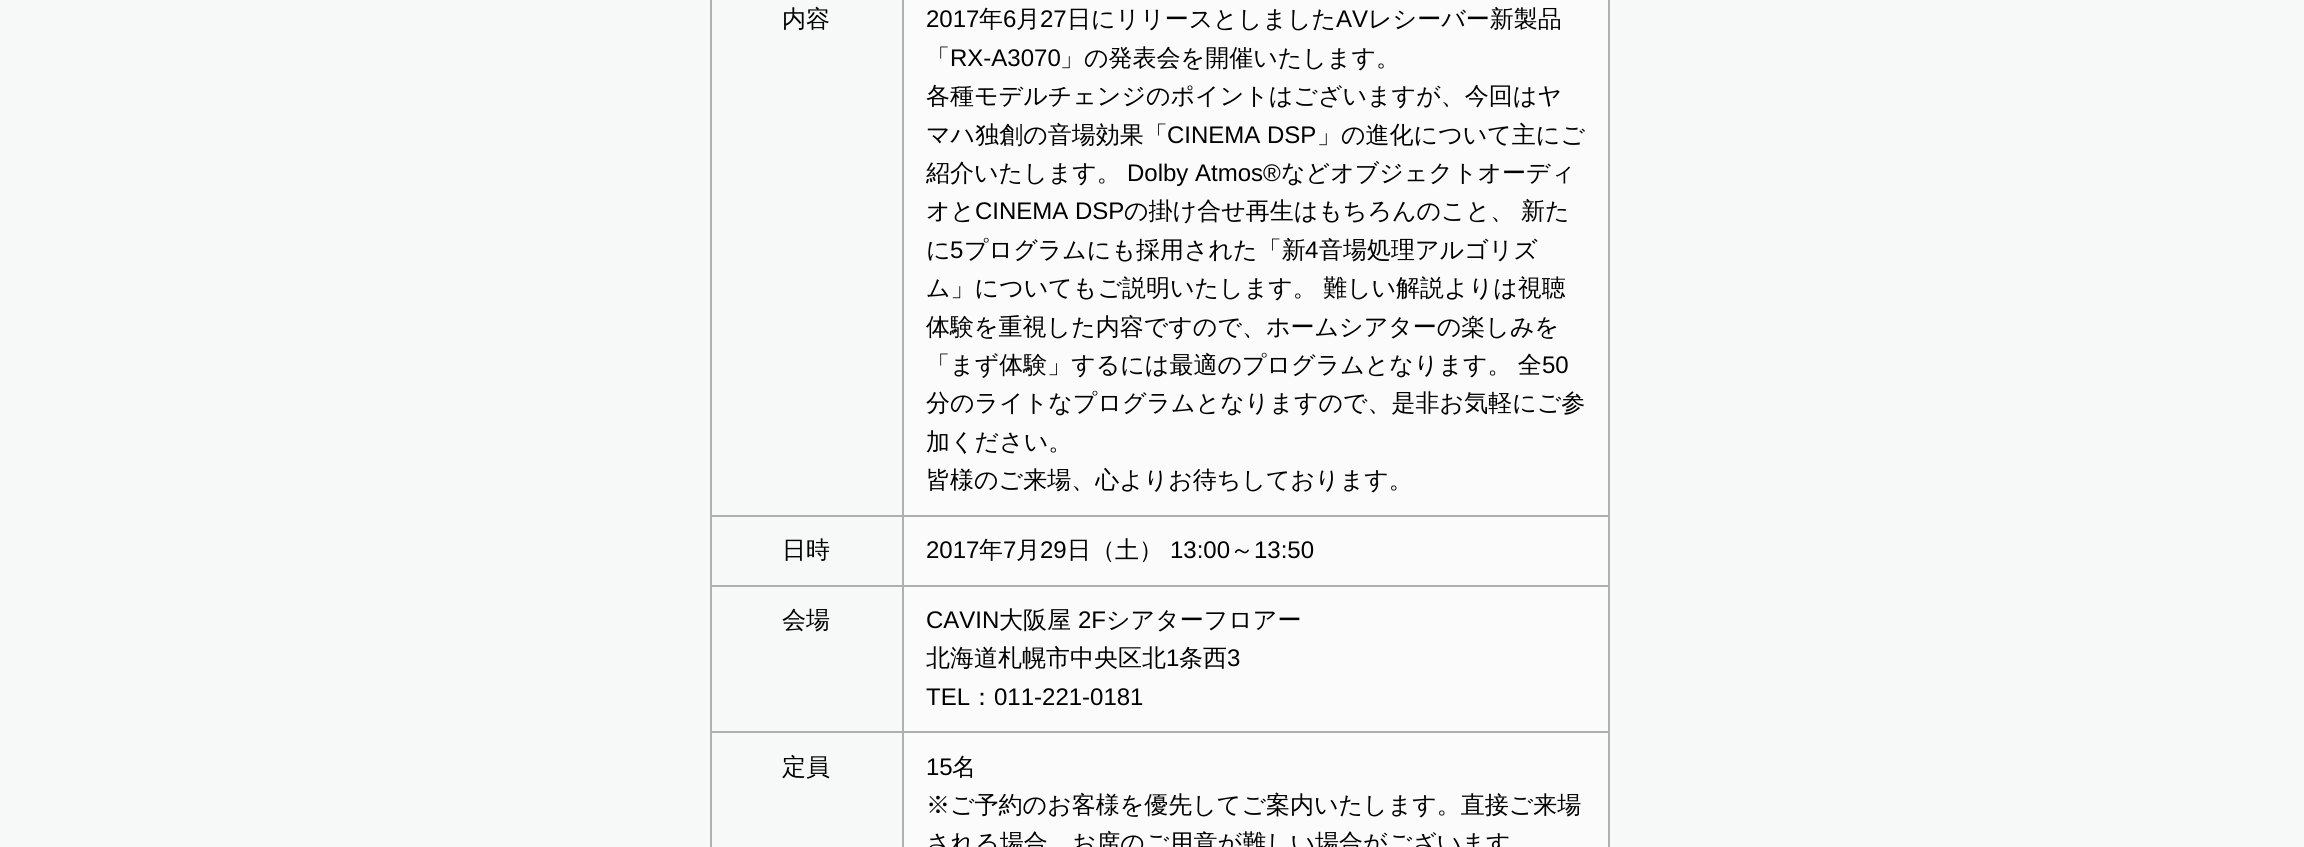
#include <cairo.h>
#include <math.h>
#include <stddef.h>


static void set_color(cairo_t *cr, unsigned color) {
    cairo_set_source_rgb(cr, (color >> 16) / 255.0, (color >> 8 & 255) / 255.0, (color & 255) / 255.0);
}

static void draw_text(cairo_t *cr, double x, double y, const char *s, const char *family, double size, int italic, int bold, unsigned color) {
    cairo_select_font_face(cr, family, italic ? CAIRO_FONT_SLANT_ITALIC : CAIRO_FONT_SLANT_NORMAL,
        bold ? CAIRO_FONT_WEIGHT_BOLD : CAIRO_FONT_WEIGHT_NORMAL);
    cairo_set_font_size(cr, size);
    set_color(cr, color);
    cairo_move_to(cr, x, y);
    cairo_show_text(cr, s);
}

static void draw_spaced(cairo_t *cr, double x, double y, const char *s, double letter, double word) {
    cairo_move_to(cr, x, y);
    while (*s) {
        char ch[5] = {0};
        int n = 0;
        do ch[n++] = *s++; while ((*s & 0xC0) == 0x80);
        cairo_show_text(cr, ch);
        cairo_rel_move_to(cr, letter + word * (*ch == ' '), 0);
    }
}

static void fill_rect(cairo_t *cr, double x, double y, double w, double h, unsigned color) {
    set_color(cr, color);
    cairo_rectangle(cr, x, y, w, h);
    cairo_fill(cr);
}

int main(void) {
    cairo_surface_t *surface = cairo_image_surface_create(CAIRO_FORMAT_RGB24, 2304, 847);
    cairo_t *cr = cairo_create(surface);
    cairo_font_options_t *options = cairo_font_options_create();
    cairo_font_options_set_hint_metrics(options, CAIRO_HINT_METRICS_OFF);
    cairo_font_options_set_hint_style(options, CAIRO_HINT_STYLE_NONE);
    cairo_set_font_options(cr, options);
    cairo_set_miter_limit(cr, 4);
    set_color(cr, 0xF7F8F8);
    cairo_paint(cr);
    draw_text(cr, 782, 27, "内容", "WenQuanYi Zen Hei Medium", 24, 0, 0, 0x000000);
    fill_rect(cr, 904, 0, 704, 515, 0xFBFBFB);
    fill_rect(cr, 902, 515, 708, 2, 0xAFAFAF);
    fill_rect(cr, 902, 585, 708, 2, 0xAFAFAF);
    fill_rect(cr, 902, 731, 708, 2, 0xAFAFAF);
    fill_rect(cr, 902, 731, 2, 116, 0xAFAFAF);
    fill_rect(cr, 710, 731, 193, 2, 0xAFAFAF);
    fill_rect(cr, 902, 585, 2, 147, 0xAFAFAF);
    fill_rect(cr, 710, 585, 193, 2, 0xAFAFAF);
    fill_rect(cr, 902, 515, 2, 72, 0xAFAFAF);
    fill_rect(cr, 710, 515, 193, 2, 0xAFAFAF);
    fill_rect(cr, 902, 0, 2, 516, 0xAFAFAF);
    draw_text(cr, 926, 27, "2017", "Liberation Sans", 24, 0, 0, 0x000000);
    draw_text(cr, 979, 27, "年", "WenQuanYi Zen Hei Medium", 24, 0, 0, 0x000000);
    draw_text(cr, 1003, 27, "6", "Liberation Sans", 24, 0, 0, 0x000000);
    draw_text(cr, 1016, 27, "月", "WenQuanYi Zen Hei Medium", 24, 0, 0, 0x000000);
    draw_text(cr, 1040, 27, "27", "Liberation Sans", 24, 0, 0, 0x000000);
    draw_text(cr, 1067, 27, "日にリリースとしました", "WenQuanYi Zen Hei Medium", 24, 0, 0, 0x000000);
    draw_text(cr, 1336, 27, "AV", "Liberation Sans", 24, 0, 0, 0x000000);
    draw_text(cr, 1368, 27, "レシーバー新製品", "WenQuanYi Zen Hei Medium", 24, 0, 0, 0x000000);
    draw_text(cr, 926, 66, "「", "WenQuanYi Zen Hei Medium", 24, 0, 0, 0x000000);
    draw_text(cr, 950, 66, "RX-A3070", "Liberation Sans", 24, 0, 0, 0x000000);
    draw_text(cr, 1060, 66, "」の発表会を開催いたします。", "WenQuanYi Zen Hei Medium", 24, 0, 0, 0x000000);
    draw_text(cr, 926, 104, "各種モデルチェンジのポイントはございますが、今回はヤ", "WenQuanYi Zen Hei Medium", 24, 0, 0, 0x000000);
    draw_text(cr, 926, 143, "マハ独創の音場効果「", "WenQuanYi Zen Hei Medium", 24, 0, 0, 0x000000);
    draw_text(cr, 1167, 143, "CINEMA DSP", "Liberation Sans", 24, 0, 0, 0x000000);
    draw_text(cr, 1317, 143, "」の進化について主にご", "WenQuanYi Zen Hei Medium", 24, 0, 0, 0x000000);
    draw_text(cr, 926, 181, "紹介いたします。", "WenQuanYi Zen Hei Medium", 24, 0, 0, 0x000000);
    draw_text(cr, 1127, 181, "Dolby Atmos®", "Liberation Sans", 24, 0, 0, 0x000000);
    draw_text(cr, 1281, 181, "などオブジェクトオーディ", "WenQuanYi Zen Hei Medium", 24, 0, 0, 0x000000);
    draw_text(cr, 926, 219, "オと", "WenQuanYi Zen Hei Medium", 24, 0, 0, 0x000000);
    draw_text(cr, 975, 219, "CINEMA DSP", "Liberation Sans", 24, 0, 0, 0x000000);
    draw_text(cr, 1124, 219, "の掛け合せ再生はもちろんのこと、", "WenQuanYi Zen Hei Medium", 24, 0, 0, 0x000000);
    draw_text(cr, 1521, 219, "新た", "WenQuanYi Zen Hei Medium", 24, 0, 0, 0x000000);
    draw_text(cr, 926, 258, "に", "WenQuanYi Zen Hei Medium", 24, 0, 0, 0x000000);
    draw_text(cr, 950, 258, "5", "Liberation Sans", 24, 0, 0, 0x000000);
    draw_text(cr, 964, 258, "プログラムにも採用された「新", "WenQuanYi Zen Hei Medium", 24, 0, 0, 0x000000);
    draw_text(cr, 1305, 258, "4", "Liberation Sans", 24, 0, 0, 0x000000);
    draw_text(cr, 1319, 258, "音場処理アルゴリズ", "WenQuanYi Zen Hei Medium", 24, 0, 0, 0x000000);
    draw_spaced(cr, 926, 296, "ム」についてもご説明いたします。 難しい解説よりは視聴", 0, -1);
    draw_text(cr, 926, 335, "体験を重視した内容ですので、ホームシアターの楽しみを", "WenQuanYi Zen Hei Medium", 24, 0, 0, 0x000000);
    draw_spaced(cr, 926, 373, "「まず体験」するには最適のプログラムとなります。 全", 0, -1);
    draw_text(cr, 1542, 373, "50", "Liberation Sans", 24, 0, 0, 0x000000);
    draw_text(cr, 926, 411, "分のライトなプログラムとなりますので、是非お気軽にご参", "WenQuanYi Zen Hei Medium", 24, 0, 0, 0x000000);
    draw_text(cr, 926, 450, "加ください。", "WenQuanYi Zen Hei Medium", 24, 0, 0, 0x000000);
    draw_text(cr, 926, 488, "皆様のご来場、心よりお待ちしております。", "WenQuanYi Zen Hei Medium", 24, 0, 0, 0x000000);
    fill_rect(cr, 710, 731, 2, 116, 0xAFAFAF);
    fill_rect(cr, 710, 585, 2, 147, 0xAFAFAF);
    fill_rect(cr, 710, 0, 2, 587, 0xAFAFAF);
    draw_text(cr, 782, 558, "日時", "WenQuanYi Zen Hei Medium", 24, 0, 0, 0x000000);
    fill_rect(cr, 904, 517, 704, 68, 0xFBFBFB);
    fill_rect(cr, 1608, 731, 2, 116, 0xAFAFAF);
    fill_rect(cr, 1608, 585, 2, 147, 0xAFAFAF);
    fill_rect(cr, 1608, 0, 2, 587, 0xAFAFAF);
    draw_text(cr, 926, 558, "2017", "Liberation Sans", 24, 0, 0, 0x000000);
    draw_text(cr, 979, 558, "年", "WenQuanYi Zen Hei Medium", 24, 0, 0, 0x000000);
    draw_text(cr, 1003, 558, "7", "Liberation Sans", 24, 0, 0, 0x000000);
    draw_text(cr, 1016, 558, "月", "WenQuanYi Zen Hei Medium", 24, 0, 0, 0x000000);
    draw_text(cr, 1040, 558, "29", "Liberation Sans", 24, 0, 0, 0x000000);
    draw_text(cr, 1067, 558, "日（土）", "WenQuanYi Zen Hei Medium", 24, 0, 0, 0x000000);
    draw_text(cr, 1170, 558, "13:00", "Liberation Sans", 24, 0, 0, 0x000000);
    draw_text(cr, 1230, 558, "～", "WenQuanYi Zen Hei Medium", 24, 0, 0, 0x000000);
    draw_text(cr, 1254, 558, "13:50", "Liberation Sans", 24, 0, 0, 0x000000);
    draw_text(cr, 782, 628, "会場", "WenQuanYi Zen Hei Medium", 24, 0, 0, 0x000000);
    fill_rect(cr, 904, 587, 704, 144, 0xFBFBFB);
    draw_text(cr, 926, 628, "CAVIN", "Liberation Sans", 24, 0, 0, 0x000000);
    draw_text(cr, 999, 628, "大阪屋", "WenQuanYi Zen Hei Medium", 24, 0, 0, 0x000000);
    draw_text(cr, 1078, 628, "2F", "Liberation Sans", 24, 0, 0, 0x000000);
    draw_text(cr, 1106, 628, "シアターフロアー", "WenQuanYi Zen Hei Medium", 24, 0, 0, 0x000000);
    draw_text(cr, 926, 666, "北海道札幌市中央区北", "WenQuanYi Zen Hei Medium", 24, 0, 0, 0x000000);
    draw_text(cr, 1166, 666, "1", "Liberation Sans", 24, 0, 0, 0x000000);
    draw_text(cr, 1179, 666, "条西", "WenQuanYi Zen Hei Medium", 24, 0, 0, 0x000000);
    draw_text(cr, 1227, 666, "3", "Liberation Sans", 24, 0, 0, 0x000000);
    draw_text(cr, 926, 705, "TEL", "Liberation Sans", 24, 0, 0, 0x000000);
    draw_text(cr, 970, 705, "：", "WenQuanYi Zen Hei Medium", 24, 0, 0, 0x000000);
    draw_text(cr, 994, 705, "011-221-0181", "Liberation Sans", 24, 0, 0, 0x000000);
    draw_text(cr, 782, 775, "定員", "WenQuanYi Zen Hei Medium", 24, 0, 0, 0x000000);
    fill_rect(cr, 904, 733, 704, 114, 0xFBFBFB);
    draw_text(cr, 926, 775, "15", "Liberation Sans", 24, 0, 0, 0x000000);
    draw_text(cr, 952, 775, "名", "WenQuanYi Zen Hei Medium", 24, 0, 0, 0x000000);
    draw_text(cr, 926, 813, "※ご予約のお客様を優先してご案内いたします。直接ご来場", "WenQuanYi Zen Hei Medium", 24, 0, 0, 0x000000);
    draw_text(cr, 926, 851, "される場合、お席のご用意が難しい場合がございます", "WenQuanYi Zen Hei Medium", 24, 0, 0, 0x000000);
    cairo_surface_write_to_png(surface, "output.png");
    cairo_font_options_destroy(options);
    cairo_destroy(cr);
    cairo_surface_destroy(surface);
    return 0;
}
